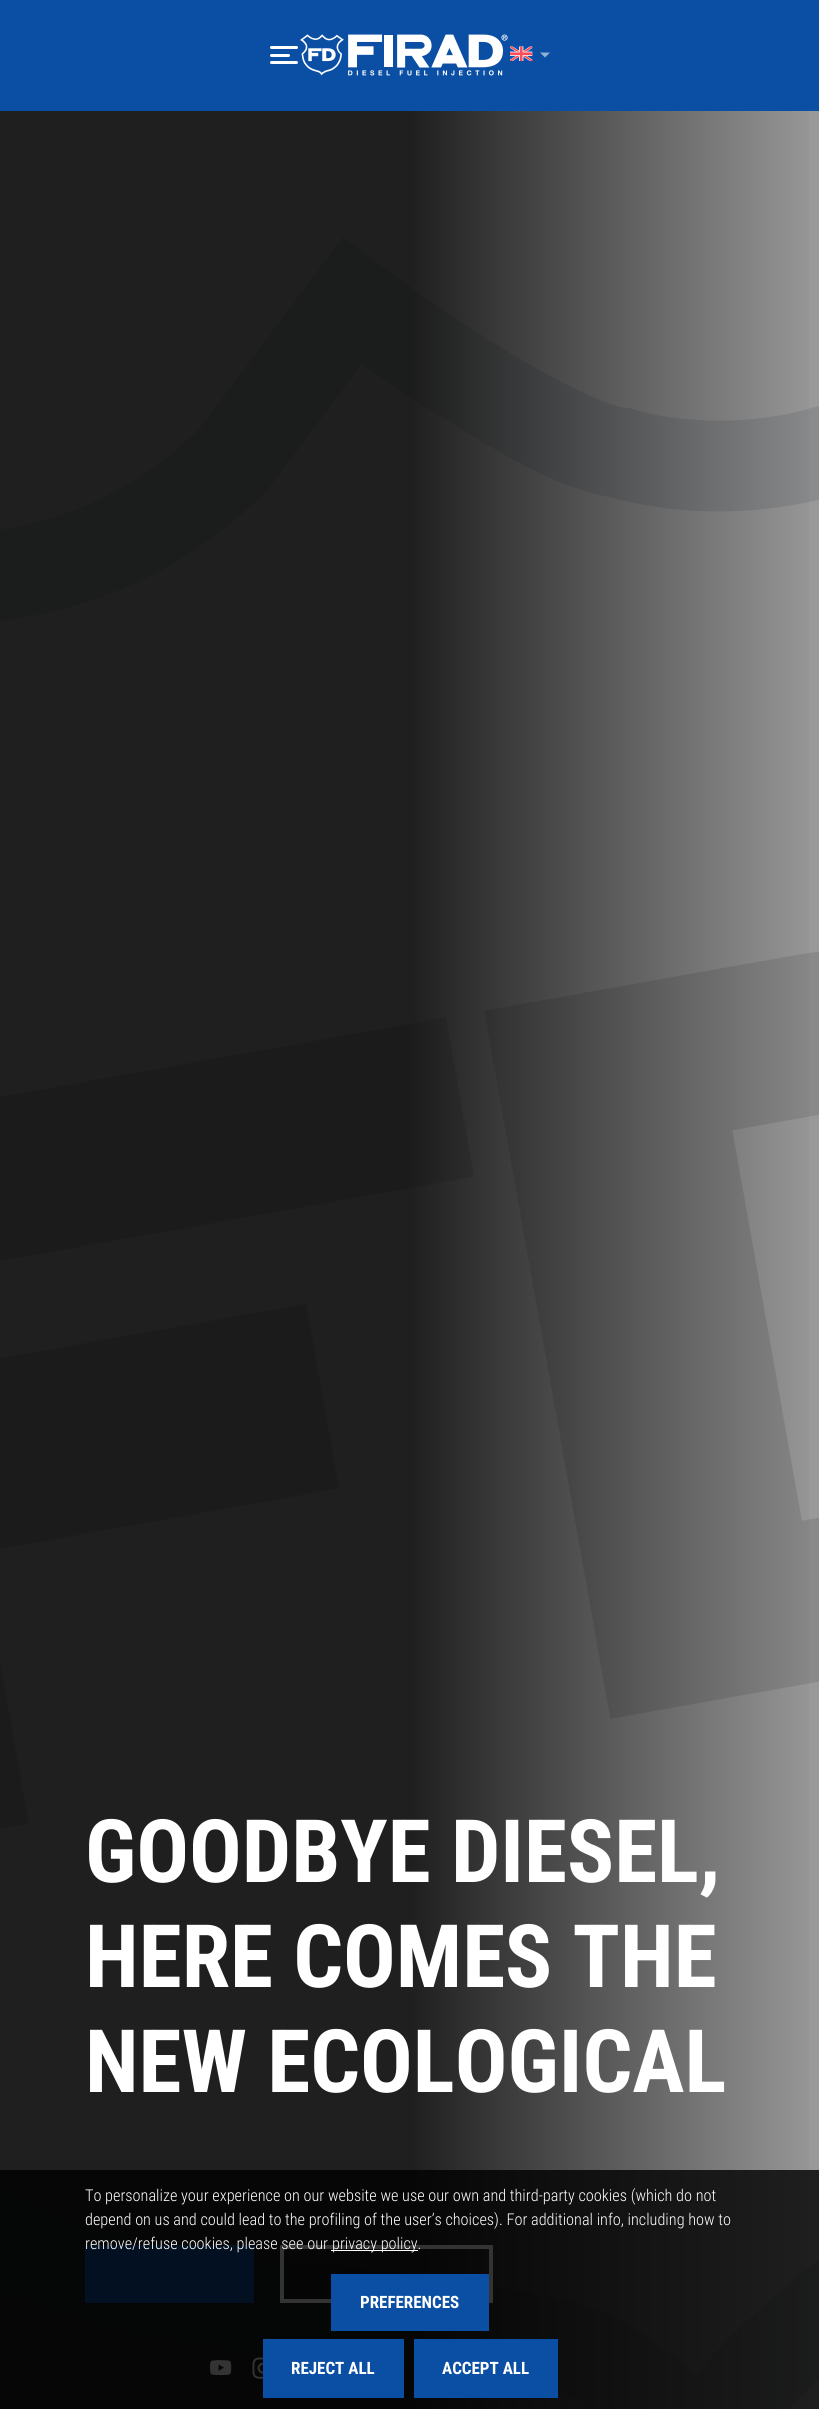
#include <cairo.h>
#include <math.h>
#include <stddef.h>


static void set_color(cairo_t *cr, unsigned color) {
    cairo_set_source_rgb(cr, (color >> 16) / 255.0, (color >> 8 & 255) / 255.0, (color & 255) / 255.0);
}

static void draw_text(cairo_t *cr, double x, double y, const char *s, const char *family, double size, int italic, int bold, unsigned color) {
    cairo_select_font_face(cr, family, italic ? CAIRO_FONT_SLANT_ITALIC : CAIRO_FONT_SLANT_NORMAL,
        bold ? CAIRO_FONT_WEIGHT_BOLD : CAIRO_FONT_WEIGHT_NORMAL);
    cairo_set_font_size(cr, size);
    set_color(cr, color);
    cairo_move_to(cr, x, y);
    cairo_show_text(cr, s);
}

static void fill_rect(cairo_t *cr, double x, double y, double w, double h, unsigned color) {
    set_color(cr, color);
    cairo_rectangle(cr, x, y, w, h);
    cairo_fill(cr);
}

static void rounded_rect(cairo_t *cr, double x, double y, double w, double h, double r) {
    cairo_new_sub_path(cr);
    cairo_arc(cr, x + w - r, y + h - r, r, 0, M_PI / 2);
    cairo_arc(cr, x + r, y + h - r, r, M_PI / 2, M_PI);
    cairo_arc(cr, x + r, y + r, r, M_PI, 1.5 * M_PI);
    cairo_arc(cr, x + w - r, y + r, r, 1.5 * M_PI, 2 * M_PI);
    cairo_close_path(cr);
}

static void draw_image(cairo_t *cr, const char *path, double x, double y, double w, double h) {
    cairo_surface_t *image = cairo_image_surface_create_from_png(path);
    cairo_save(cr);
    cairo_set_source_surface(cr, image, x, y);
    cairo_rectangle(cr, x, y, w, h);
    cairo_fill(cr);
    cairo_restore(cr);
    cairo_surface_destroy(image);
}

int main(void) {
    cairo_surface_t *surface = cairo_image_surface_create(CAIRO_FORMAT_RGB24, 819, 2409);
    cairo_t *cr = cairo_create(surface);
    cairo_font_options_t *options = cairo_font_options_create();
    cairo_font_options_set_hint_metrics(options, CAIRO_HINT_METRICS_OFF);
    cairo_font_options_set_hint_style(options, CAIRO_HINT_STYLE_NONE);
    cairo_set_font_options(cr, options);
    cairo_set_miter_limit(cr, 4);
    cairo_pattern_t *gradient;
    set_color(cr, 0x999999);
    cairo_paint(cr);
    fill_rect(cr, 0, 0, 819, 111, 0x0B4FA4);
    set_color(cr, 0xFFFFFF);
    rounded_rect(cr, 270, 46, 28, 3, 1.5);
    cairo_fill(cr);
    rounded_rect(cr, 270, 54, 20, 3, 1.5);
    cairo_fill(cr);
    rounded_rect(cr, 270, 61, 28, 3, 1.5);
    cairo_fill(cr);
    draw_image(cr, "assets/img1.png", 300, 34, 208, 42);
    draw_image(cr, "assets/img2.png", 510, 46, 23, 15);
    set_color(cr, 0x91B0D6);
    cairo_new_path(cr);
    cairo_move_to(cr, 540, 52.5);
    cairo_line_to(cr, 550, 52.5);
    cairo_line_to(cr, 545, 57.5);
    cairo_close_path(cr);
    cairo_fill(cr);
    draw_image(cr, "assets/img3.png", 0, 237, 819, 2172);
    gradient = cairo_pattern_create_linear(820, 1316, 0, 1316);
    cairo_pattern_add_color_stop_rgba(gradient, 0, 0, 0, 0, 0);
    cairo_pattern_add_color_stop_rgba(gradient, 0.5, 0, 0, 0, 0.8);
    cairo_pattern_add_color_stop_rgba(gradient, 1, 0, 0, 0, 0.8);
    cairo_set_source(cr, gradient);
    cairo_pattern_destroy(gradient);
    cairo_rectangle(cr, 0, 111, 809, 2298);
    cairo_fill(cr);
    draw_text(cr, 85, 1882, "GOODBYE DIESEL,", "Roboto Condensed", 87.5, 0, 1, 0xFFFFFF);
    draw_text(cr, 85, 1987, "HERE COMES THE", "Roboto Condensed", 87.5, 0, 1, 0xFFFFFF);
    draw_text(cr, 85, 2092, "NEW ECOLOGICAL", "Roboto Condensed", 87.5, 0, 1, 0xFFFFFF);
    fill_rect(cr, 85, 2245, 169, 58, 0x0B4FA4);
    cairo_set_source_rgba(cr, 0, 0, 0, 0.1);
    cairo_rectangle(cr, 282, 2247, 209, 54);
    cairo_fill_preserve(cr);
    set_color(cr, 0xFFFFFF);
    cairo_set_line_width(cr, 4);
    cairo_stroke(cr);
    draw_image(cr, "assets/img4.png", 210, 2360, 22, 16);
    draw_image(cr, "assets/img5.png", 252, 2357, 11, 22);
    cairo_set_source_rgba(cr, 0, 0, 0, 0.8);
    cairo_rectangle(cr, 0, 2170, 819, 239);
    cairo_fill(cr);
    draw_text(cr, 85, 2201, "To personalize your experience on our website we use our own and third-party cookies (which do not", "Roboto Condensed Light", 16.25, 0, 0, 0xFFFFFF);
    draw_text(cr, 85, 2225, "depend on us and could lead to the profiling of the user’s choices). For additional info, including how to", "Roboto Condensed Light", 16.25, 0, 0, 0xFFFFFF);
    draw_text(cr, 85, 2249, "remove/refuse cookies, please see our", "Roboto Condensed Light", 16.25, 0, 0, 0xFFFFFF);
    fill_rect(cr, 331, 2250, 87, 1, 0xFFFFFF);
    draw_text(cr, 332, 2249, "privacy policy.", "Roboto Condensed Light", 16.25, 0, 0, 0xFFFFFF);
    fill_rect(cr, 331, 2274, 158, 57, 0x0B4FA4);
    draw_text(cr, 360, 2308, "PREFERENCES", "Roboto Condensed", 17, 0, 1, 0xFFFFFF);
    fill_rect(cr, 263, 2339, 141, 59, 0x0B4FA4);
    draw_text(cr, 291, 2374, "REJECT ALL", "Roboto Condensed", 17, 0, 1, 0xFFFFFF);
    fill_rect(cr, 414, 2339, 144, 59, 0x0B4FA4);
    draw_text(cr, 442, 2374, "ACCEPT ALL", "Roboto Condensed", 17, 0, 1, 0xFFFFFF);
    cairo_surface_write_to_png(surface, "output.png");
    cairo_font_options_destroy(options);
    cairo_destroy(cr);
    cairo_surface_destroy(surface);
    return 0;
}
